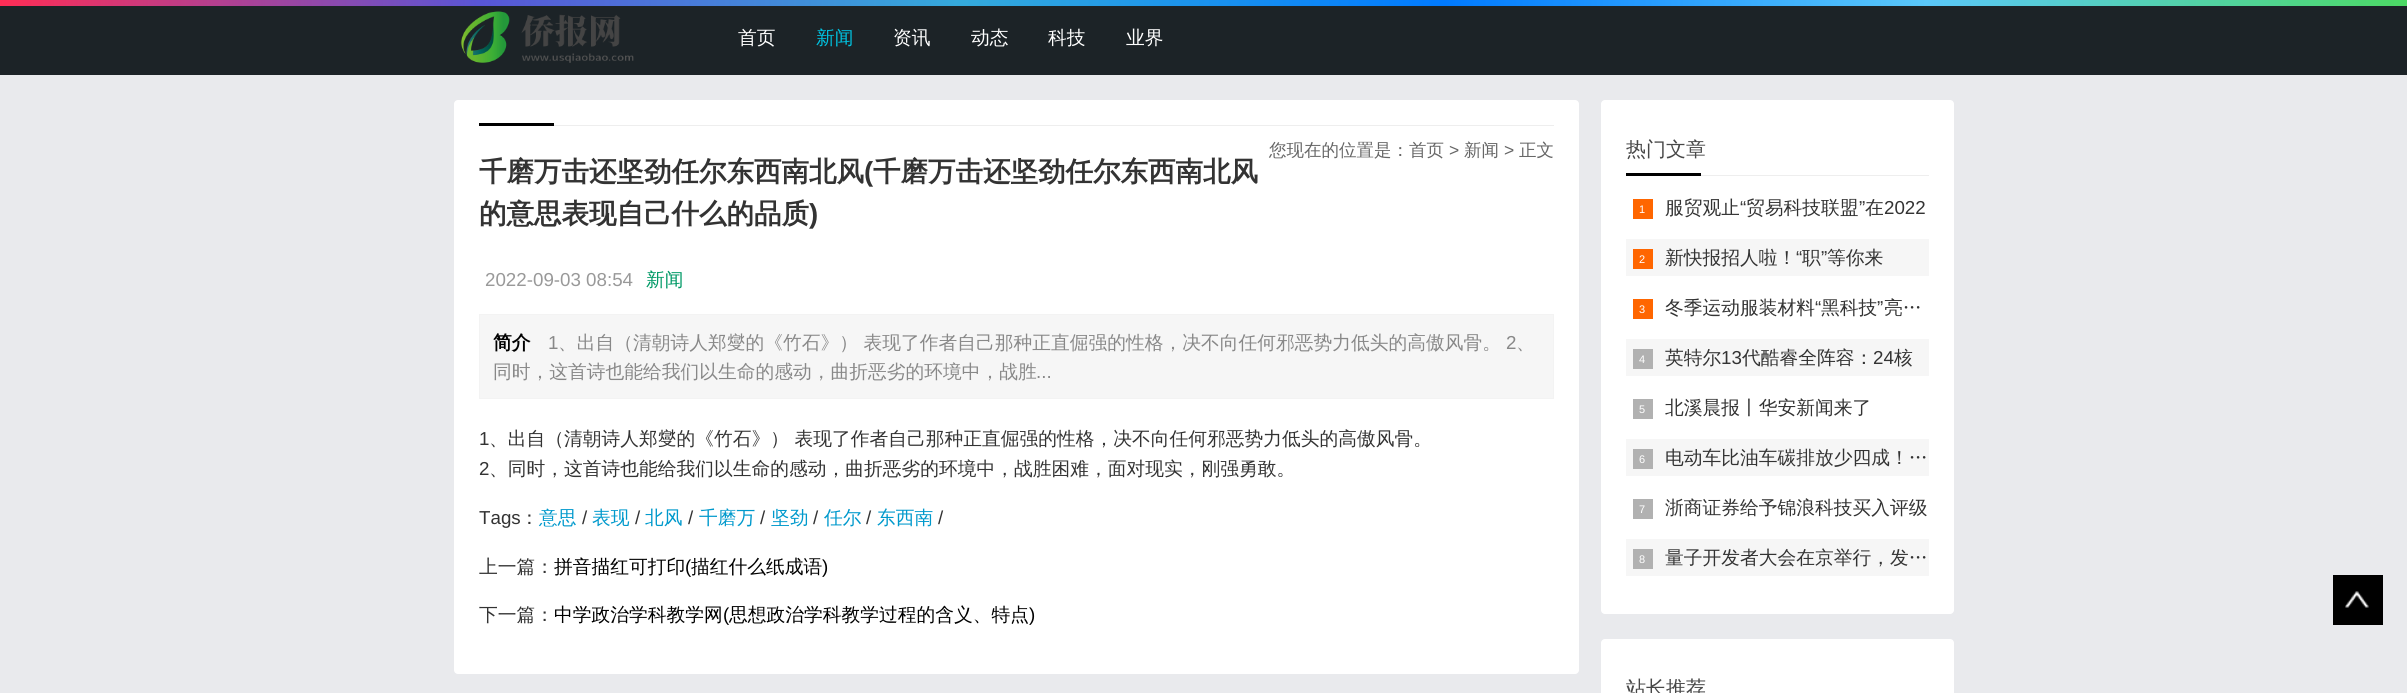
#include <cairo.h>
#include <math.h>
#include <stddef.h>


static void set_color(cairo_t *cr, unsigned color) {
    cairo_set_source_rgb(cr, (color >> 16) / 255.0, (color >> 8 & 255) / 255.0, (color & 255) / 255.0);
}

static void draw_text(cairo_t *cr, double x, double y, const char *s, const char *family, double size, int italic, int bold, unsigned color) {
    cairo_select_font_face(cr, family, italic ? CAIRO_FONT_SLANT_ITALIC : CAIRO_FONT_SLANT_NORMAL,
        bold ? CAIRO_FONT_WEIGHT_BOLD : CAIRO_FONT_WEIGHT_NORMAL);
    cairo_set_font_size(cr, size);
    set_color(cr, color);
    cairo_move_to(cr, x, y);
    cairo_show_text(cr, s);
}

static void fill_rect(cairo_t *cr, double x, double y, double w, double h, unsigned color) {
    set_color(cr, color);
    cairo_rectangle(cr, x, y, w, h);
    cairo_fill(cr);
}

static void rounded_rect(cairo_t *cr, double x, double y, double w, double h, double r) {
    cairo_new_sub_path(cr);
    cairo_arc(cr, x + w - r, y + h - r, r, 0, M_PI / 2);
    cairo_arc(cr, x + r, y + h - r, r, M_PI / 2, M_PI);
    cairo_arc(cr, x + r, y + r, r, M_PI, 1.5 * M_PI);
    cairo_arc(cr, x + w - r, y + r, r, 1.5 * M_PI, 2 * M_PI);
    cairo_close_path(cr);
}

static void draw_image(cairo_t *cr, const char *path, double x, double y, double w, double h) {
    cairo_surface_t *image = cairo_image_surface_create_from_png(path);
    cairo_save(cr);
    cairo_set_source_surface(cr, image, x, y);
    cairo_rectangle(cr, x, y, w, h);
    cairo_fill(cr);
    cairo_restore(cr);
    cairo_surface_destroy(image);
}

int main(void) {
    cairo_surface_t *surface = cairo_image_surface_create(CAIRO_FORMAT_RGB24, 2407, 693);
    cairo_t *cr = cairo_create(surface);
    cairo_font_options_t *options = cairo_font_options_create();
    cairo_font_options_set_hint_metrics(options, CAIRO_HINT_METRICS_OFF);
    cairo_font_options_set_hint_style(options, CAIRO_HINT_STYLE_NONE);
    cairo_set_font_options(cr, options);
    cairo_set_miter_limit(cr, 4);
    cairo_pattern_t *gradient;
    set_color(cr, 0xE9EAED);
    cairo_paint(cr);
    fill_rect(cr, 0, 6, 2407, 69, 0x1C2327);
    gradient = cairo_pattern_create_linear(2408, 3.1, 0, 3.1);
    cairo_pattern_add_color_stop_rgba(gradient, 0, 0.298, 0.851, 0.392, 1);
    cairo_pattern_add_color_stop_rgba(gradient, 0.2, 0.353, 0.784, 0.98, 1);
    cairo_pattern_add_color_stop_rgba(gradient, 0.4, 0, 0.478, 1, 1);
    cairo_pattern_add_color_stop_rgba(gradient, 0.6, 0.204, 0.667, 0.863, 1);
    cairo_pattern_add_color_stop_rgba(gradient, 0.8, 0.345, 0.337, 0.839, 1);
    cairo_pattern_add_color_stop_rgba(gradient, 1, 1, 0.176, 0.333, 1);
    cairo_set_source(cr, gradient);
    cairo_pattern_destroy(gradient);
    cairo_rectangle(cr, 0, 0, 2407, 6);
    cairo_fill(cr);
    draw_image(cr, "assets/img1.png", 460, 11, 174, 52);
    draw_text(cr, 738, 44, "首页", "WenQuanYi Zen Hei Medium", 18.75, 0, 0, 0xFFFFFF);
    draw_text(cr, 816, 44, "新闻", "WenQuanYi Zen Hei Medium", 18.75, 0, 0, 0x00C1DE);
    draw_text(cr, 893, 44, "资讯", "WenQuanYi Zen Hei Medium", 18.75, 0, 0, 0xFFFFFF);
    draw_text(cr, 971, 44, "动态", "WenQuanYi Zen Hei Medium", 18.75, 0, 0, 0xFFFFFF);
    draw_text(cr, 1048, 44, "科技", "WenQuanYi Zen Hei Medium", 18.75, 0, 0, 0xFFFFFF);
    draw_text(cr, 1126, 44, "业界", "WenQuanYi Zen Hei Medium", 18.75, 0, 0, 0xFFFFFF);
    rounded_rect(cr, 454, 100, 1125, 574, 4);
    cairo_fill(cr);
    fill_rect(cr, 554, 125, 1000, 1, 0xEEEEEE);
    fill_rect(cr, 479, 123, 75, 3, 0x000000);
    draw_text(cr, 1269, 156, "您现在的位置是：首页", "WenQuanYi Zen Hei Medium", 17.5, 0, 0, 0x666666);
    draw_text(cr, 1449, 156, ">", "Liberation Sans", 17.5, 0, 0, 0x666666);
    draw_text(cr, 1464, 156, "新闻", "WenQuanYi Zen Hei Medium", 17.5, 0, 0, 0x666666);
    draw_text(cr, 1504, 156, ">", "Liberation Sans", 17.5, 0, 0, 0x666666);
    draw_text(cr, 1519, 156, "正文", "WenQuanYi Zen Hei Medium", 17.5, 0, 0, 0x666666);
    draw_text(cr, 479, 181, "千磨万击还坚劲任尔东西南北风", "WenQuanYi Zen Hei", 27.5, 0, 1, 0x333333);
    draw_text(cr, 864, 181, "(", "Liberation Sans", 27.5, 0, 1, 0x333333);
    draw_text(cr, 873, 181, "千磨万击还坚劲任尔东西南北风", "WenQuanYi Zen Hei", 27.5, 0, 1, 0x333333);
    draw_text(cr, 479, 223, "的意思表现自己什么的品质", "WenQuanYi Zen Hei", 27.5, 0, 1, 0x333333);
    draw_text(cr, 809, 223, ")", "Liberation Sans", 27.5, 0, 1, 0x333333);
    draw_text(cr, 485, 286, "2022-09-03 08:54", "Liberation Sans", 18.75, 0, 0, 0x999999);
    draw_text(cr, 646, 286, "新闻", "WenQuanYi Zen Hei Medium", 18.75, 0, 0, 0x009966);
    set_color(cr, 0xF6F6F6);
    cairo_rectangle(cr, 479.5, 314.5, 1074, 84);
    cairo_fill_preserve(cr);
    set_color(cr, 0xF3F3F3);
    cairo_set_line_width(cr, 1);
    cairo_stroke(cr);
    draw_text(cr, 493, 349, "简介", "WenQuanYi Zen Hei", 18.75, 0, 1, 0x000000);
    draw_text(cr, 548, 349, "1", "Liberation Sans", 18.75, 0, 0, 0x888888);
    draw_text(cr, 558, 349, "、出自（清朝诗人郑燮的《竹石》） 表现了作者自己那种正直倔强的性格，决不向任何邪恶势力低头的高傲风骨。", "WenQuanYi Zen Hei Medium", 18.75, 0, 0, 0x888888);
    draw_text(cr, 1506, 349, "2", "Liberation Sans", 18.75, 0, 0, 0x888888);
    draw_text(cr, 1516, 349, "、", "WenQuanYi Zen Hei Medium", 18.75, 0, 0, 0x888888);
    draw_text(cr, 493, 378, "同时，这首诗也能给我们以生命的感动，曲折恶劣的环境中，战胜", "WenQuanYi Zen Hei Medium", 18.75, 0, 0, 0x888888);
    draw_text(cr, 1036, 378, "...", "Liberation Sans", 18.75, 0, 0, 0x888888);
    draw_text(cr, 479, 445, "1", "Liberation Sans", 18.75, 0, 0, 0x333333);
    draw_text(cr, 489, 445, "、出自（清朝诗人郑燮的《竹石》） 表现了作者自己那种正直倔强的性格，决不向任何邪恶势力低头的高傲风骨。", "WenQuanYi Zen Hei Medium", 18.75, 0, 0, 0x333333);
    draw_text(cr, 479, 475, "2", "Liberation Sans", 18.75, 0, 0, 0x333333);
    draw_text(cr, 489, 475, "、同时，这首诗也能给我们以生命的感动，曲折恶劣的环境中，战胜困难，面对现实，刚强勇敢。", "WenQuanYi Zen Hei Medium", 18.75, 0, 0, 0x333333);
    draw_text(cr, 479, 524, "Tags", "Liberation Sans", 18.75, 0, 0, 0x333333);
    draw_text(cr, 520, 524, "：", "WenQuanYi Zen Hei Medium", 18.75, 0, 0, 0x333333);
    draw_text(cr, 539, 524, "意思", "WenQuanYi Zen Hei Medium", 18.75, 0, 0, 0x0099CC);
    draw_text(cr, 582, 524, "/", "Liberation Sans", 18.75, 0, 0, 0x333333);
    draw_text(cr, 592, 524, "表现", "WenQuanYi Zen Hei Medium", 18.75, 0, 0, 0x0099CC);
    draw_text(cr, 635, 524, "/", "Liberation Sans", 18.75, 0, 0, 0x333333);
    draw_text(cr, 645, 524, "北风", "WenQuanYi Zen Hei Medium", 18.75, 0, 0, 0x0099CC);
    draw_text(cr, 688, 524, "/", "Liberation Sans", 18.75, 0, 0, 0x333333);
    draw_text(cr, 699, 524, "千磨万", "WenQuanYi Zen Hei Medium", 18.75, 0, 0, 0x0099CC);
    draw_text(cr, 760, 524, "/", "Liberation Sans", 18.75, 0, 0, 0x333333);
    draw_text(cr, 771, 524, "坚劲", "WenQuanYi Zen Hei Medium", 18.75, 0, 0, 0x0099CC);
    draw_text(cr, 813, 524, "/", "Liberation Sans", 18.75, 0, 0, 0x333333);
    draw_text(cr, 824, 524, "任尔", "WenQuanYi Zen Hei Medium", 18.75, 0, 0, 0x0099CC);
    draw_text(cr, 866, 524, "/", "Liberation Sans", 18.75, 0, 0, 0x333333);
    draw_text(cr, 877, 524, "东西南", "WenQuanYi Zen Hei Medium", 18.75, 0, 0, 0x0099CC);
    draw_text(cr, 938, 524, "/", "Liberation Sans", 18.75, 0, 0, 0x333333);
    draw_text(cr, 479, 573, "上一篇：", "WenQuanYi Zen Hei Medium", 18.75, 0, 0, 0x333333);
    draw_text(cr, 554, 573, "拼音描红可打印", "WenQuanYi Zen Hei Medium", 18.75, 0, 0, 0x000000);
    draw_text(cr, 685, 573, "(", "Liberation Sans", 18.75, 0, 0, 0x000000);
    draw_text(cr, 691, 573, "描红什么纸成语", "WenQuanYi Zen Hei Medium", 18.75, 0, 0, 0x000000);
    draw_text(cr, 822, 573, ")", "Liberation Sans", 18.75, 0, 0, 0x000000);
    draw_text(cr, 479, 621, "下一篇：", "WenQuanYi Zen Hei Medium", 18.75, 0, 0, 0x333333);
    draw_text(cr, 554, 621, "中学政治学科教学网", "WenQuanYi Zen Hei Medium", 18.75, 0, 0, 0x000000);
    draw_text(cr, 723, 621, "(", "Liberation Sans", 18.75, 0, 0, 0x000000);
    draw_text(cr, 729, 621, "思想政治学科教学过程的含义、特点", "WenQuanYi Zen Hei Medium", 18.75, 0, 0, 0x000000);
    draw_text(cr, 1029, 621, ")", "Liberation Sans", 18.75, 0, 0, 0x000000);
    set_color(cr, 0xFFFFFF);
    rounded_rect(cr, 1601, 100, 353, 514, 4);
    cairo_fill(cr);
    fill_rect(cr, 1701, 175, 228, 1, 0xEEEEEE);
    draw_text(cr, 1626, 156, "热门文章", "WenQuanYi Zen Hei Medium", 20, 0, 0, 0x484848);
    fill_rect(cr, 1626, 173, 75, 3, 0x000000);
    draw_text(cr, 1665, 214, "服贸观止", "WenQuanYi Zen Hei Medium", 18.75, 0, 0, 0x333333);
    draw_text(cr, 1740, 214, "“", "Liberation Sans", 18.75, 0, 0, 0x333333);
    draw_text(cr, 1746, 214, "贸易科技联盟", "WenQuanYi Zen Hei Medium", 18.75, 0, 0, 0x333333);
    draw_text(cr, 1859, 214, "”", "Liberation Sans", 18.75, 0, 0, 0x333333);
    draw_text(cr, 1865, 214, "在", "WenQuanYi Zen Hei Medium", 18.75, 0, 0, 0x333333);
    draw_text(cr, 1884, 214, "2022", "Liberation Sans", 18.75, 0, 0, 0x333333);
    fill_rect(cr, 1633, 199, 20, 20, 0xFF6600);
    draw_text(cr, 1639, 213, "1", "Liberation Sans", 11, 0, 0, 0xFFFFFF);
    fill_rect(cr, 1626, 239, 303, 37, 0xF6F6F6);
    draw_text(cr, 1665, 264, "新快报招人啦！", "WenQuanYi Zen Hei Medium", 18.75, 0, 0, 0x333333);
    draw_text(cr, 1796, 264, "“", "Liberation Sans", 18.75, 0, 0, 0x333333);
    draw_text(cr, 1802, 264, "职", "WenQuanYi Zen Hei Medium", 18.75, 0, 0, 0x333333);
    draw_text(cr, 1821, 264, "”", "Liberation Sans", 18.75, 0, 0, 0x333333);
    draw_text(cr, 1827, 264, "等你来", "WenQuanYi Zen Hei Medium", 18.75, 0, 0, 0x333333);
    fill_rect(cr, 1633, 249, 20, 20, 0xFF6600);
    draw_text(cr, 1639, 263, "2", "Liberation Sans", 11, 0, 0, 0xFFFFFF);
    draw_text(cr, 1665, 314, "冬季运动服装材料", "WenQuanYi Zen Hei Medium", 18.75, 0, 0, 0x333333);
    draw_text(cr, 1815, 314, "“", "Liberation Sans", 18.75, 0, 0, 0x333333);
    draw_text(cr, 1821, 314, "黑科技", "WenQuanYi Zen Hei Medium", 18.75, 0, 0, 0x333333);
    draw_text(cr, 1877, 314, "”", "Liberation Sans", 18.75, 0, 0, 0x333333);
    draw_text(cr, 1884, 314, "亮…", "WenQuanYi Zen Hei Medium", 18.75, 0, 0, 0x333333);
    fill_rect(cr, 1633, 299, 20, 20, 0xFF6600);
    draw_text(cr, 1639, 313, "3", "Liberation Sans", 11, 0, 0, 0xFFFFFF);
    fill_rect(cr, 1626, 339, 303, 37, 0xF6F6F6);
    fill_rect(cr, 1633, 349, 20, 20, 0xB1B1B1);
    draw_text(cr, 1639, 363, "4", "Liberation Sans", 11, 0, 0, 0xFFFFFF);
    draw_text(cr, 1665, 364, "英特尔", "WenQuanYi Zen Hei Medium", 18.75, 0, 0, 0x333333);
    draw_text(cr, 1721, 364, "13", "Liberation Sans", 18.75, 0, 0, 0x333333);
    draw_text(cr, 1742, 364, "代酷睿全阵容：", "WenQuanYi Zen Hei Medium", 18.75, 0, 0, 0x333333);
    draw_text(cr, 1873, 364, "24", "Liberation Sans", 18.75, 0, 0, 0x333333);
    draw_text(cr, 1894, 364, "核", "WenQuanYi Zen Hei Medium", 18.75, 0, 0, 0x333333);
    fill_rect(cr, 1633, 399, 20, 20, 0xB1B1B1);
    draw_text(cr, 1639, 413, "5", "Liberation Sans", 11, 0, 0, 0xFFFFFF);
    draw_text(cr, 1665, 414, "北溪晨报丨华安新闻来了", "WenQuanYi Zen Hei Medium", 18.75, 0, 0, 0x333333);
    fill_rect(cr, 1626, 439, 303, 37, 0xF6F6F6);
    fill_rect(cr, 1633, 449, 20, 20, 0xB1B1B1);
    draw_text(cr, 1639, 463, "6", "Liberation Sans", 11, 0, 0, 0xFFFFFF);
    draw_text(cr, 1665, 464, "电动车比油车碳排放少四成！…", "WenQuanYi Zen Hei Medium", 18.75, 0, 0, 0x333333);
    fill_rect(cr, 1633, 499, 20, 20, 0xB1B1B1);
    draw_text(cr, 1639, 513, "7", "Liberation Sans", 11, 0, 0, 0xFFFFFF);
    draw_text(cr, 1665, 514, "浙商证券给予锦浪科技买入评级", "WenQuanYi Zen Hei Medium", 18.75, 0, 0, 0x333333);
    fill_rect(cr, 1626, 539, 303, 37, 0xF6F6F6);
    fill_rect(cr, 1633, 549, 20, 20, 0xB1B1B1);
    draw_text(cr, 1639, 563, "8", "Liberation Sans", 11, 0, 0, 0xFFFFFF);
    draw_text(cr, 1665, 564, "量子开发者大会在京举行，发…", "WenQuanYi Zen Hei Medium", 18.75, 0, 0, 0x333333);
    set_color(cr, 0xFFFFFF);
    rounded_rect(cr, 1601, 639, 353, 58, 4);
    cairo_fill(cr);
    draw_text(cr, 1626, 695, "站长推荐", "WenQuanYi Zen Hei Medium", 20, 0, 0, 0x484848);
    fill_rect(cr, 2333, 575, 50, 50, 0x000000);
    draw_image(cr, "assets/img2.png", 2345, 591, 24, 17);
    cairo_surface_write_to_png(surface, "output.png");
    cairo_font_options_destroy(options);
    cairo_destroy(cr);
    cairo_surface_destroy(surface);
    return 0;
}
